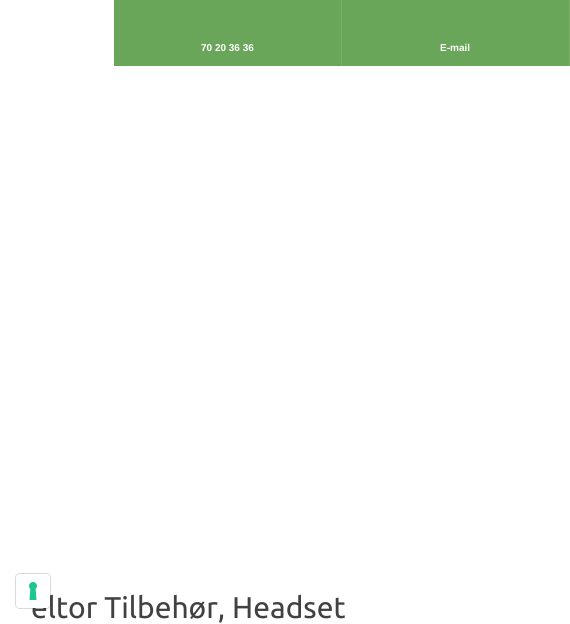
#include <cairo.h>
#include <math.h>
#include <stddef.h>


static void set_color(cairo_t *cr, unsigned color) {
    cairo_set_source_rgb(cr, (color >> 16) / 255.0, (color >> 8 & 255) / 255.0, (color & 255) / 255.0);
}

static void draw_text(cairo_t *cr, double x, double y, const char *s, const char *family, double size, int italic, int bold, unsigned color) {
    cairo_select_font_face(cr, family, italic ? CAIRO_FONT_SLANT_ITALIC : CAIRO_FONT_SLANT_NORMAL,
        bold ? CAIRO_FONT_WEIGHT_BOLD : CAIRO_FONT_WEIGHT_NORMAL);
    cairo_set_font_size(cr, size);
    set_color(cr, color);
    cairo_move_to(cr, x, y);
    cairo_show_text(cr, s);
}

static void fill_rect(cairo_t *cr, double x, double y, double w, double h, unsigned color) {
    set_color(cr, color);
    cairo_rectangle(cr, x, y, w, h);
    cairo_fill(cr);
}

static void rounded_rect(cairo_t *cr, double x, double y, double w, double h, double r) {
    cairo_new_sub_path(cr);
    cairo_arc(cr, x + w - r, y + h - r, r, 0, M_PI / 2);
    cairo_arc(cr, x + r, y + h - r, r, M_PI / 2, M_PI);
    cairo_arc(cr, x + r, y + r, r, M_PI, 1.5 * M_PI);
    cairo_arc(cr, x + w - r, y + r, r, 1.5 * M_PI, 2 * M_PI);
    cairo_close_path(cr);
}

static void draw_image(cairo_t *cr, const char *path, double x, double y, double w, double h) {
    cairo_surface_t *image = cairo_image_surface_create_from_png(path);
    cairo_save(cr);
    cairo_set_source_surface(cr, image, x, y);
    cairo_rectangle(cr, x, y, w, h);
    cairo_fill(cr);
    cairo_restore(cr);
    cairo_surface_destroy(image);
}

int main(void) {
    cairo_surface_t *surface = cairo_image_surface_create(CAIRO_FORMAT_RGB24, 570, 624);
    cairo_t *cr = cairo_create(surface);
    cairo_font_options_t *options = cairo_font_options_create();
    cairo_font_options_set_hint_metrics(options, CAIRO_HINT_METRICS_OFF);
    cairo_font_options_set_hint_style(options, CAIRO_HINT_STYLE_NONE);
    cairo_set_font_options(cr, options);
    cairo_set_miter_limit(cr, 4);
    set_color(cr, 0xFFFFFF);
    cairo_paint(cr);
    fill_rect(cr, 114, 0, 227, 66, 0x69A659);
    fill_rect(cr, 341, 0, 1, 66, 0x78AF6A);
    draw_text(cr, 201, 51, "70 20 36 36", "Liberation Sans", 10, 0, 1, 0xFFFFFF);
    fill_rect(cr, 342, 0, 227, 66, 0x69A659);
    fill_rect(cr, 569, 0, 1, 66, 0x78AF6A);
    draw_text(cr, 440, 51, "E-mail", "Liberation Sans", 10, 0, 1, 0xFFFFFF);
    draw_text(cr, 31, 618, "eltor Tilbehør, Headset", "Ubuntu", 30, 0, 0, 0x414141);
    rounded_rect(cr, 15.5, 573.5, 35, 35, 4.5);
    cairo_set_source_rgba(cr, 0, 0, 0, 0.15);
    cairo_set_line_width(cr, 1);
    cairo_stroke(cr);
    set_color(cr, 0xFFFFFF);
    rounded_rect(cr, 16, 574, 34, 34, 4);
    cairo_fill(cr);
    draw_image(cr, "assets/img1.png", 29, 582, 8, 18);
    cairo_surface_write_to_png(surface, "output.png");
    cairo_font_options_destroy(options);
    cairo_destroy(cr);
    cairo_surface_destroy(surface);
    return 0;
}
